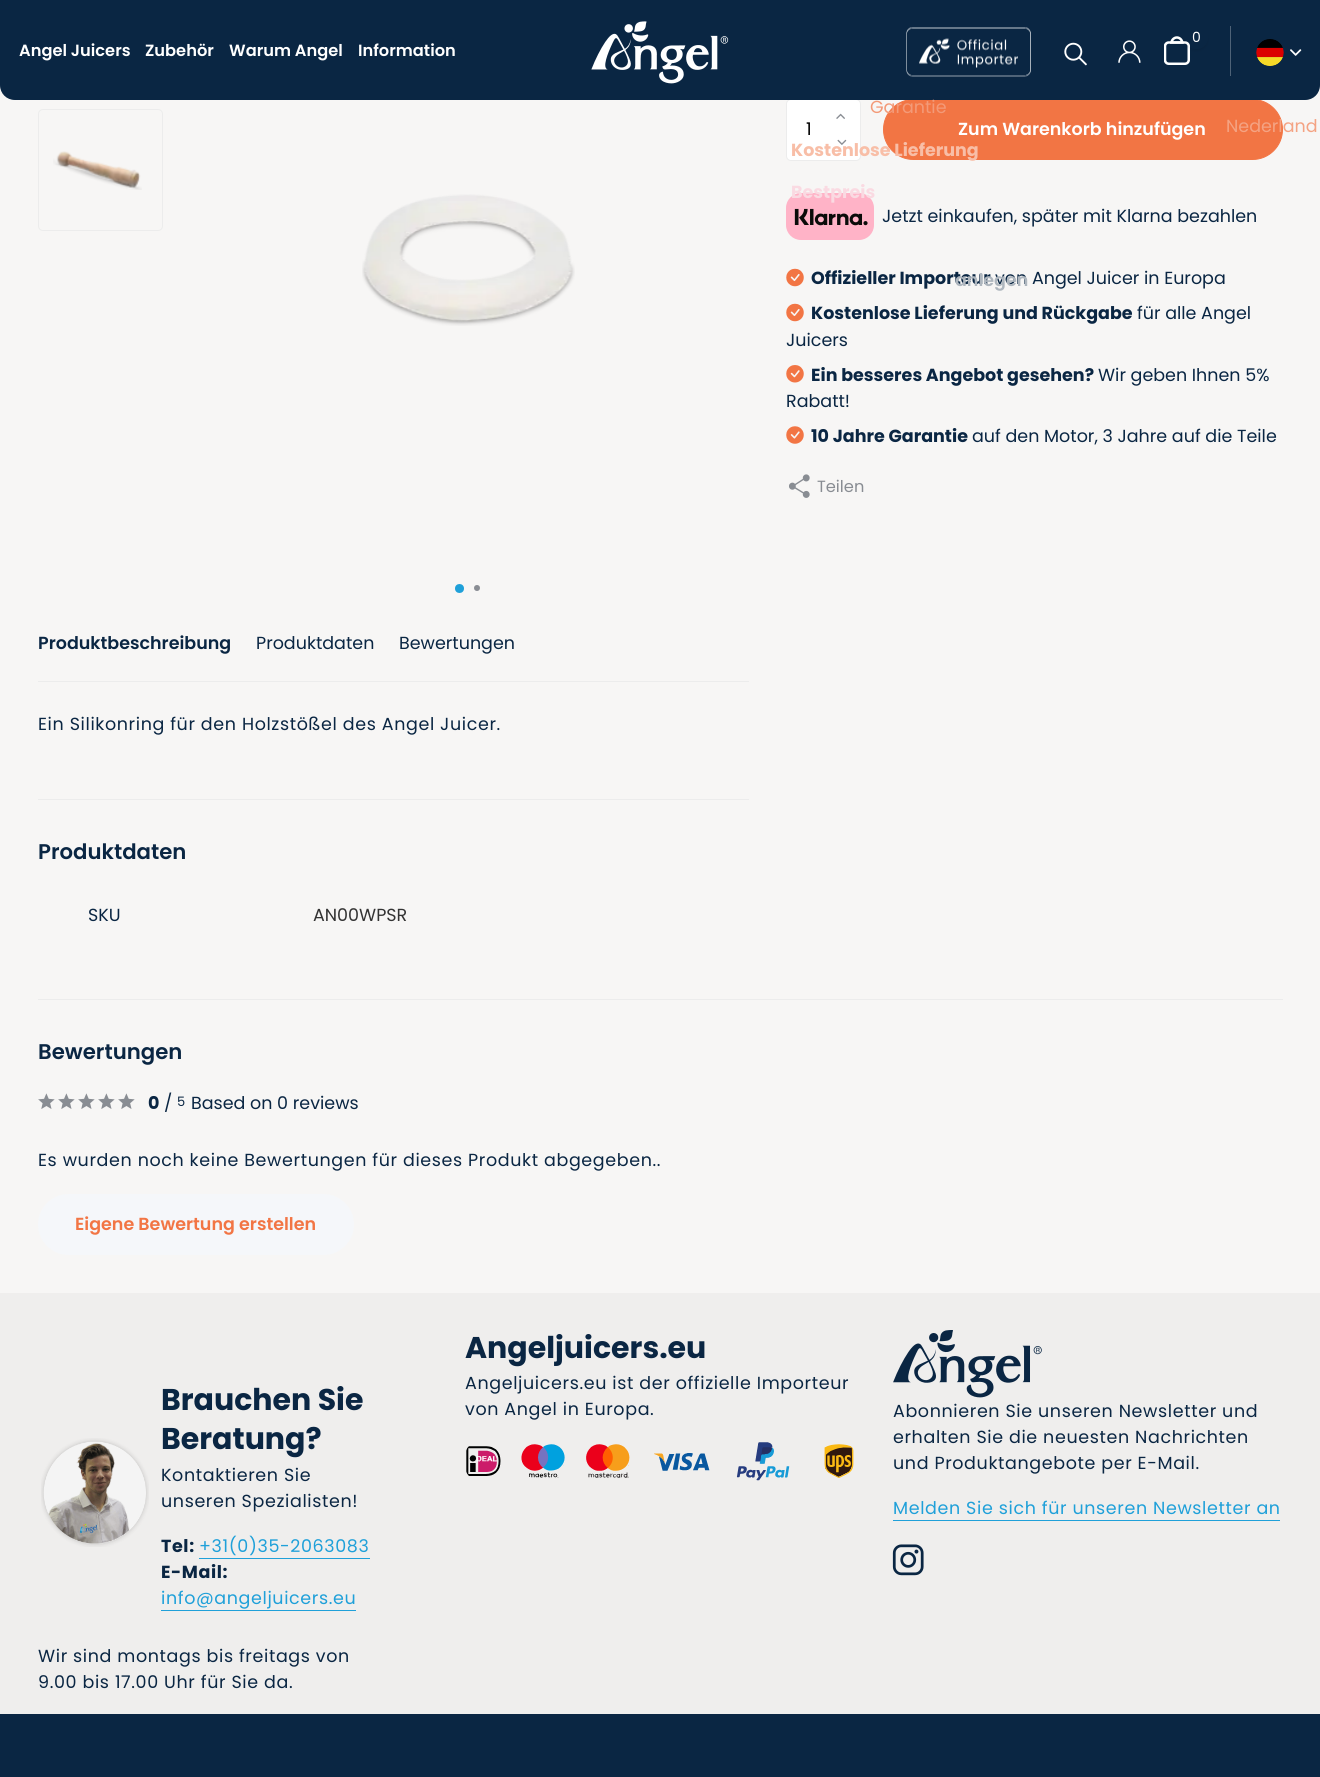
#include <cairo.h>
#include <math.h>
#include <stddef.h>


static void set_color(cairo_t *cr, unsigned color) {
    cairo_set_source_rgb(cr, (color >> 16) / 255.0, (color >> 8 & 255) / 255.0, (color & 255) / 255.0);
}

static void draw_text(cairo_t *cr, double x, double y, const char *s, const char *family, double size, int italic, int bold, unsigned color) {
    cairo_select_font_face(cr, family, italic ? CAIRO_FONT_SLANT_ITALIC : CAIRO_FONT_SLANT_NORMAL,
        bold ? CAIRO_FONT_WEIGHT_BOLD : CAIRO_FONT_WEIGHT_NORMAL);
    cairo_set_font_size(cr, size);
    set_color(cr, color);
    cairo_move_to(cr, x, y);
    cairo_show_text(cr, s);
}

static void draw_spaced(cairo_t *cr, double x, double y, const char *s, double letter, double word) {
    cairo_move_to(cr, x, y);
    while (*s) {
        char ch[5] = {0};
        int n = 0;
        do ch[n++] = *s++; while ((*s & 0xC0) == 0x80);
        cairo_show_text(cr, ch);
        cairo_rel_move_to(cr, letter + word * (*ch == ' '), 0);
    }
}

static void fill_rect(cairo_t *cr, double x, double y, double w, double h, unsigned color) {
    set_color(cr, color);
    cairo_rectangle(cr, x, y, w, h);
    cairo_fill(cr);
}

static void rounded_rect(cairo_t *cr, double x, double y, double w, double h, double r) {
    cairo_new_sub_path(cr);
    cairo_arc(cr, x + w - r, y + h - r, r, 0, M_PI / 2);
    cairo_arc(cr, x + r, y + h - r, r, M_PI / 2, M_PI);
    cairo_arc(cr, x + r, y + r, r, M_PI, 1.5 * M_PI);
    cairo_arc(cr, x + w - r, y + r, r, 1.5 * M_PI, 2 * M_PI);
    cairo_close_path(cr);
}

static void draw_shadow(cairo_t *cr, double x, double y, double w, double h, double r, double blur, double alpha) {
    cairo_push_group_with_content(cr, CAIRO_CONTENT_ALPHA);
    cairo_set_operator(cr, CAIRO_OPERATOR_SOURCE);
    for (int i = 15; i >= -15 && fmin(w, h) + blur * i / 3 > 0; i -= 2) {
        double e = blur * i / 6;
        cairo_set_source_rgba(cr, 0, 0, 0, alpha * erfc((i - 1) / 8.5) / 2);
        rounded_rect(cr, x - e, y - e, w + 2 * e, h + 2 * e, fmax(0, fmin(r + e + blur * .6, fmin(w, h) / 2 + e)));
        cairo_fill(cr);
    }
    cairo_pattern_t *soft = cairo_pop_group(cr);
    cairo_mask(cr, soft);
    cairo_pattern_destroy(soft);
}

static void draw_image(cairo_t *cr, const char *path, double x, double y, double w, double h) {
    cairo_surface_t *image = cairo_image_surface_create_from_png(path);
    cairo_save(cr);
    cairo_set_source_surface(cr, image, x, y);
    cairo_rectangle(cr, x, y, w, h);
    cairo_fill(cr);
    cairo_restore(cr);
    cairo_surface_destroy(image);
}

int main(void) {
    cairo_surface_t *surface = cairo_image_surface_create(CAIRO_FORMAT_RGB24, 1320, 1777);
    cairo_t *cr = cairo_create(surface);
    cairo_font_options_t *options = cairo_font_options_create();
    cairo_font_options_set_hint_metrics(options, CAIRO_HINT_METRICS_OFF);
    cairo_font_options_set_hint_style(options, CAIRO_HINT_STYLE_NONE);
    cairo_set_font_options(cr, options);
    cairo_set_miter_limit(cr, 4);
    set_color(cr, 0xF7F6F5);
    cairo_paint(cr);
    set_color(cr, 0xFFFFFF);
    rounded_rect(cr, 786.5, 99.5, 74, 61, 4.5);
    cairo_fill_preserve(cr);
    set_color(cr, 0xECECEC);
    cairo_set_line_width(cr, 1);
    cairo_stroke(cr);
    set_color(cr, 0xF27544);
    rounded_rect(cr, 883.5, 99.5, 399, 60, 30);
    cairo_fill_preserve(cr);
    cairo_stroke(cr);
    set_color(cr, 0x0A2643);
    cairo_new_path(cr);
    cairo_move_to(cr, 0, 0);
    cairo_line_to(cr, 1320, 0);
    cairo_line_to(cr, 1320, 85);
    cairo_curve_to(cr, 1320, 93.5, 1313.5, 100, 1305, 100);
    cairo_line_to(cr, 15, 100);
    cairo_curve_to(cr, 6.5, 100, 0, 93.5, 0, 85);
    cairo_close_path(cr);
    cairo_fill(cr);
    draw_text(cr, 19, 56, "Angel Juicers", "Poppins SemiBold", 16.25, 0, 0, 0xFFFFFF);
    draw_text(cr, 145, 56, "Zubehör", "Poppins SemiBold", 16.25, 0, 0, 0xFFFFFF);
    draw_text(cr, 229, 56, "Warum Angel", "Poppins SemiBold", 16.25, 0, 0, 0xFFFFFF);
    draw_text(cr, 358, 56, "Information", "Poppins SemiBold", 16.25, 0, 0, 0xFFFFFF);
    draw_image(cr, "assets/img1.png", 591, 21, 138, 63);
    draw_image(cr, "assets/img2.png", 906, 27, 125, 50);
    fill_rect(cr, 1230, 26, 1, 50, 0x4E6277);
    draw_image(cr, "assets/img3.png", 1164, 36, 26, 29);
    cairo_save(cr);
    cairo_set_fill_rule(cr, CAIRO_FILL_RULE_EVEN_ODD);
    cairo_new_path(cr);
    cairo_move_to(cr, 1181, 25);
    cairo_line_to(cr, 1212, 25);
    cairo_line_to(cr, 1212, 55);
    cairo_line_to(cr, 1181, 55);
    cairo_close_path(cr);
    cairo_move_to(cr, 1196.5, 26);
    cairo_curve_to(cr, 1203, 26, 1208, 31, 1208, 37.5);
    cairo_curve_to(cr, 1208, 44, 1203, 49, 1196.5, 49);
    cairo_curve_to(cr, 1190, 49, 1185, 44, 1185, 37.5);
    cairo_curve_to(cr, 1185, 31, 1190, 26, 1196.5, 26);
    cairo_close_path(cr);
    cairo_clip(cr);
    set_color(cr, 0x000000);
    draw_shadow(cr, 1185, 29, 23, 22, 11, 1, 0.06);
    cairo_restore(cr);
    draw_text(cr, 1192, 42, "0", "Poppins", 14, 0, 0, 0xFFFFFF);
    draw_image(cr, "assets/img4.png", 1118, 40, 23, 23);
    draw_text(cr, 870, 113, "Garantie", "Poppins", 17.5, 0, 0, 0xF39A78);
    draw_image(cr, "assets/img9.png", 837, 139, 10, 6);
    draw_text(cr, 791, 156, "Kostenlose Lieferung", "Poppins", 17.5, 0, 1, 0xF8BEA7);
    draw_image(cr, "assets/img10.png", 786, 193, 88, 47);
    draw_text(cr, 791, 198, "Bestpreis", "Poppins", 17.5, 0, 1, 0xFADAE2);
    draw_text(cr, 811, 284, "Offizieller Importeur", "Poppins", 17.5, 0, 1, 0x0A2643);
    draw_text(cr, 995, 284, "von Angel Juicer in Europa", "Poppins", 17.5, 0, 0, 0x0A2643);
    draw_text(cr, 955, 286, "anlegen", "Poppins SemiBold", 17.5, 0, 0, 0xAEB6BE);
    draw_image(cr, "assets/img5.png", 1064, 42, 23, 24);
    draw_image(cr, "assets/img6.png", 1256, 39, 28, 27);
    draw_image(cr, "assets/img7.png", 1290, 49, 12, 7);
    draw_text(cr, 1226, 132, "Nederland", "Poppins", 17.5, 0, 0, 0xF4A383);
    draw_image(cr, "assets/img8.png", 836, 113, 9, 6);
    draw_text(cr, 806, 135, "1", "Poppins", 17.5, 0, 0, 0x000000);
    draw_text(cr, 958, 135, "Zum Warenkorb hinzufügen", "Poppins SemiBold", 17.5, 0, 0, 0xFFFFFF);
    draw_text(cr, 882, 222, "Jetzt einkaufen, später mit Klarna bezahlen", "Poppins", 17.5, 0, 0, 0x0A2643);
    draw_image(cr, "assets/img11.png", 786, 268, 18, 19);
    draw_image(cr, "assets/img11.png", 786, 303, 18, 19);
    draw_text(cr, 811, 319, "Kostenlose Lieferung und Rückgabe", "Poppins", 17.5, 0, 1, 0x0A2643);
    draw_text(cr, 1137, 319, "für alle Angel", "Poppins", 17.5, 0, 0, 0x0A2643);
    draw_text(cr, 786, 346, "Juicers", "Poppins", 17.5, 0, 0, 0x0A2643);
    draw_image(cr, "assets/img12.png", 786, 365, 18, 18);
    draw_text(cr, 811, 381, "Ein besseres Angebot gesehen?", "Poppins", 17.5, 0, 1, 0x0A2643);
    draw_text(cr, 1098, 381, "Wir geben Ihnen 5%", "Poppins", 17.5, 0, 0, 0x0A2643);
    draw_text(cr, 786, 407, "Rabatt!", "Poppins", 17.5, 0, 0, 0x0A2643);
    draw_image(cr, "assets/img13.png", 786, 426, 18, 18);
    draw_text(cr, 811, 442, "10 Jahre Garantie", "Poppins", 17.5, 0, 1, 0x0A2643);
    draw_text(cr, 972, 442, "auf den Motor, 3 Jahre auf die Teile", "Poppins", 17.5, 0, 0, 0x0A2643);
    draw_image(cr, "assets/img14.png", 789, 474, 21, 24);
    draw_text(cr, 817, 492, "Teilen", "Poppins", 16.25, 0, 0, 0x898D93);
    rounded_rect(cr, 38.5, 109.5, 124, 121, 4.5);
    set_color(cr, 0xECECEC);
    cairo_stroke(cr);
    draw_image(cr, "assets/img15.png", 53, 151, 89, 39);
    draw_image(cr, "assets/img16.png", 362, 194, 213, 132);
    set_color(cr, 0x1FA0D9);
    cairo_arc(cr, 459.5, 588.5, 4.5, 0, 2 * M_PI);
    cairo_fill(cr);
    set_color(cr, 0x898D93);
    cairo_arc(cr, 477, 588, 3, 0, 2 * M_PI);
    cairo_fill(cr);
    fill_rect(cr, 38, 681, 711, 1, 0xECECEC);
    draw_text(cr, 38, 649, "Produktbeschreibung", "Poppins SemiBold", 17.5, 0, 0, 0x0A2643);
    draw_text(cr, 256, 649, "Produktdaten", "Poppins", 17.5, 0, 0, 0x0A2643);
    draw_text(cr, 399, 649, "Bewertungen", "Poppins", 17.5, 0, 0, 0x0A2643);
    fill_rect(cr, 38, 799, 711, 1, 0xECECEC);
    set_color(cr, 0x0A2643);
    draw_spaced(cr, 38, 730, "Ein Silikonring für den Holzstößel des Angel Juicer.", 0.62, 0);
    draw_text(cr, 38, 859, "Produktdaten", "Poppins SemiBold", 21.25, 0, 0, 0x0A2643);
    draw_text(cr, 88, 921, "SKU", "Poppins", 17.5, 0, 0, 0x0A2643);
    draw_text(cr, 313, 921, "AN00WPSR", "Poppins", 17.5, 0, 0, 0x333333);
    fill_rect(cr, 38, 999, 1245, 1, 0xECECEC);
    draw_text(cr, 38, 1059, "Bewertungen", "Poppins SemiBold", 21.25, 0, 0, 0x0A2643);
    draw_image(cr, "assets/img17.png", 38, 1093, 17, 16);
    draw_image(cr, "assets/img17.png", 58, 1093, 17, 16);
    draw_image(cr, "assets/img17.png", 78, 1093, 17, 16);
    draw_image(cr, "assets/img17.png", 98, 1093, 17, 16);
    draw_image(cr, "assets/img17.png", 118, 1093, 17, 16);
    draw_text(cr, 148, 1109, "0", "Poppins", 17.5, 0, 1, 0x0A2643);
    draw_text(cr, 164, 1109, "/", "Poppins", 17.5, 0, 0, 0x0A2643);
    draw_text(cr, 177, 1106, "5", "Poppins", 13, 0, 0, 0x0A2643);
    draw_text(cr, 191, 1109, "Based on 0 reviews", "Poppins", 17.5, 0, 0, 0x0A2643);
    draw_spaced(cr, 38, 1166, "Es wurden noch keine Bewertungen für dieses Produkt abgegeben..", 0.62, 0);
    set_color(cr, 0xF5F7FA);
    rounded_rect(cr, 38, 1194, 316, 61, 30.5);
    cairo_fill(cr);
    draw_text(cr, 75, 1230, "Eigene Bewertung erstellen", "Poppins SemiBold", 17.5, 0, 0, 0xF27544);
    fill_rect(cr, 0, 1293, 1320, 421, 0xEFEEED);
    draw_text(cr, 465, 1358, "Angeljuicers.eu", "Poppins", 30, 0, 1, 0x0A2643);
    cairo_select_font_face(cr, "Poppins", CAIRO_FONT_SLANT_NORMAL, CAIRO_FONT_WEIGHT_NORMAL);
    cairo_set_font_size(cr, 17.5);
    draw_spaced(cr, 465, 1389, "Angeljuicers.eu ist der offizielle Importeur", 0.62, 0);
    draw_spaced(cr, 465, 1415, "von Angel in Europa.", 0.62, 0);
    draw_image(cr, "assets/img18.png", 466, 1442, 388, 39);
    draw_image(cr, "assets/img19.png", 41, 1438, 108, 109);
    draw_text(cr, 161, 1410, "Brauchen Sie", "Poppins", 30, 0, 1, 0x0A2643);
    draw_text(cr, 161, 1449, "Beratung?", "Poppins", 30, 0, 1, 0x0A2643);
    cairo_select_font_face(cr, "Poppins", CAIRO_FONT_SLANT_NORMAL, CAIRO_FONT_WEIGHT_NORMAL);
    cairo_set_font_size(cr, 17.5);
    draw_spaced(cr, 161, 1481, "Kontaktieren Sie", 0.62, 0);
    draw_spaced(cr, 161, 1507, "unseren Spezialisten!", 0.62, 0);
    cairo_select_font_face(cr, "Poppins", CAIRO_FONT_SLANT_NORMAL, CAIRO_FONT_WEIGHT_BOLD);
    draw_spaced(cr, 161, 1552, "Tel:", 0.62, 0);
    cairo_select_font_face(cr, "Poppins", CAIRO_FONT_SLANT_NORMAL, CAIRO_FONT_WEIGHT_NORMAL);
    set_color(cr, 0x1FA0D9);
    draw_spaced(cr, 199, 1552, "+31(0)35-2063083", 0.62, 0);
    fill_rect(cr, 199, 1558, 171, 1, 0x1FA0D9);
    cairo_select_font_face(cr, "Poppins", CAIRO_FONT_SLANT_NORMAL, CAIRO_FONT_WEIGHT_BOLD);
    set_color(cr, 0x0A2643);
    draw_spaced(cr, 161, 1578, "E-Mail:", 0.62, 0);
    cairo_select_font_face(cr, "Poppins", CAIRO_FONT_SLANT_NORMAL, CAIRO_FONT_WEIGHT_NORMAL);
    set_color(cr, 0x1FA0D9);
    draw_spaced(cr, 161, 1604, "info@angeljuicers.eu", 0.62, 0);
    fill_rect(cr, 161, 1610, 195, 1, 0x1FA0D9);
    set_color(cr, 0x0A2643);
    draw_spaced(cr, 38, 1662, "Wir sind montags bis freitags von", 0.62, 0);
    draw_spaced(cr, 38, 1688, "9.00 bis 17.00 Uhr für Sie da.", 0.62, 0);
    draw_image(cr, "assets/img20.png", 893, 1330, 149, 68);
    draw_spaced(cr, 893, 1417, "Abonnieren Sie unseren Newsletter und", 0.62, 0);
    draw_spaced(cr, 893, 1443, "erhalten Sie die neuesten Nachrichten", 0.62, 0);
    draw_spaced(cr, 893, 1469, "und Produktangebote per E-Mail.", 0.62, 0);
    set_color(cr, 0x1FA0D9);
    draw_spaced(cr, 893, 1514, "Melden Sie sich für unseren Newsletter an", 0.62, 0);
    fill_rect(cr, 893, 1520, 387, 1, 0x1FA0D9);
    draw_image(cr, "assets/img21.png", 892, 1544, 32, 32);
    fill_rect(cr, 0, 1714, 1320, 63, 0x0A2643);
    cairo_surface_write_to_png(surface, "output.png");
    cairo_font_options_destroy(options);
    cairo_destroy(cr);
    cairo_surface_destroy(surface);
    return 0;
}
